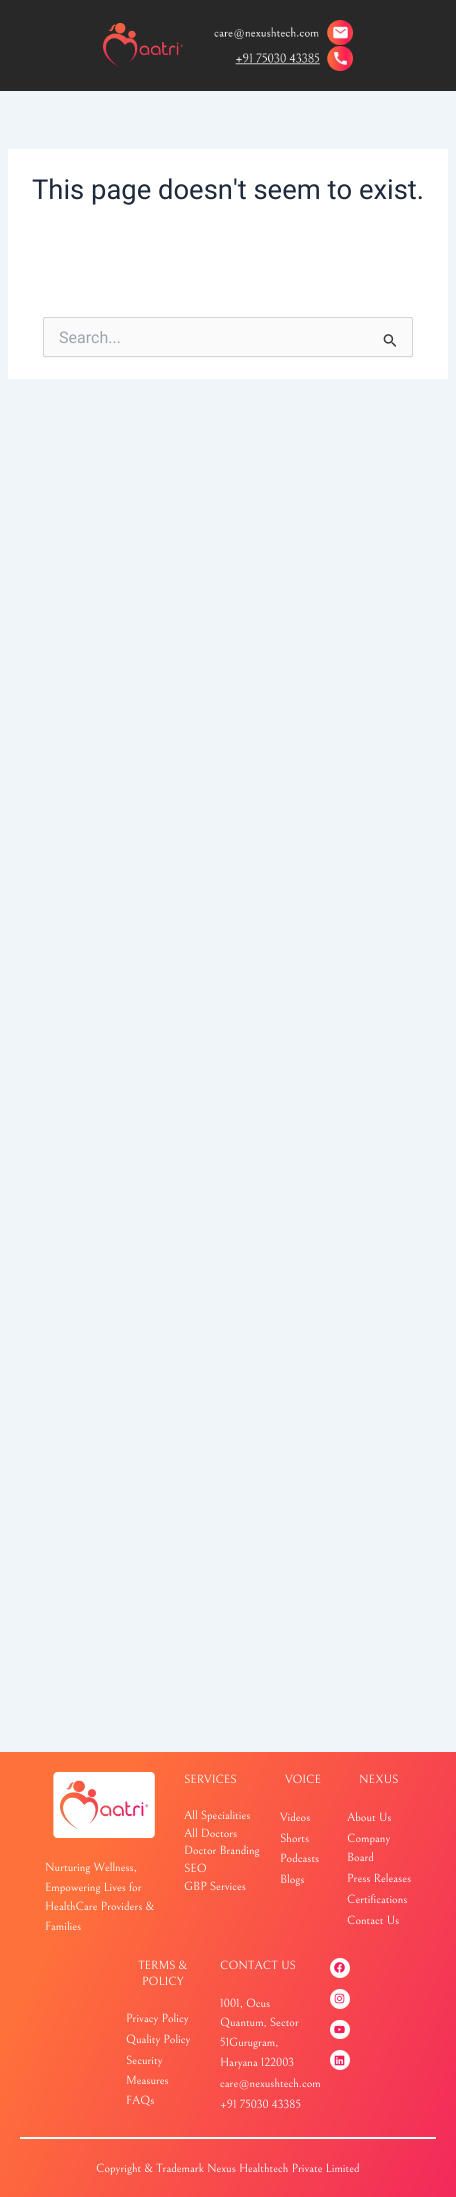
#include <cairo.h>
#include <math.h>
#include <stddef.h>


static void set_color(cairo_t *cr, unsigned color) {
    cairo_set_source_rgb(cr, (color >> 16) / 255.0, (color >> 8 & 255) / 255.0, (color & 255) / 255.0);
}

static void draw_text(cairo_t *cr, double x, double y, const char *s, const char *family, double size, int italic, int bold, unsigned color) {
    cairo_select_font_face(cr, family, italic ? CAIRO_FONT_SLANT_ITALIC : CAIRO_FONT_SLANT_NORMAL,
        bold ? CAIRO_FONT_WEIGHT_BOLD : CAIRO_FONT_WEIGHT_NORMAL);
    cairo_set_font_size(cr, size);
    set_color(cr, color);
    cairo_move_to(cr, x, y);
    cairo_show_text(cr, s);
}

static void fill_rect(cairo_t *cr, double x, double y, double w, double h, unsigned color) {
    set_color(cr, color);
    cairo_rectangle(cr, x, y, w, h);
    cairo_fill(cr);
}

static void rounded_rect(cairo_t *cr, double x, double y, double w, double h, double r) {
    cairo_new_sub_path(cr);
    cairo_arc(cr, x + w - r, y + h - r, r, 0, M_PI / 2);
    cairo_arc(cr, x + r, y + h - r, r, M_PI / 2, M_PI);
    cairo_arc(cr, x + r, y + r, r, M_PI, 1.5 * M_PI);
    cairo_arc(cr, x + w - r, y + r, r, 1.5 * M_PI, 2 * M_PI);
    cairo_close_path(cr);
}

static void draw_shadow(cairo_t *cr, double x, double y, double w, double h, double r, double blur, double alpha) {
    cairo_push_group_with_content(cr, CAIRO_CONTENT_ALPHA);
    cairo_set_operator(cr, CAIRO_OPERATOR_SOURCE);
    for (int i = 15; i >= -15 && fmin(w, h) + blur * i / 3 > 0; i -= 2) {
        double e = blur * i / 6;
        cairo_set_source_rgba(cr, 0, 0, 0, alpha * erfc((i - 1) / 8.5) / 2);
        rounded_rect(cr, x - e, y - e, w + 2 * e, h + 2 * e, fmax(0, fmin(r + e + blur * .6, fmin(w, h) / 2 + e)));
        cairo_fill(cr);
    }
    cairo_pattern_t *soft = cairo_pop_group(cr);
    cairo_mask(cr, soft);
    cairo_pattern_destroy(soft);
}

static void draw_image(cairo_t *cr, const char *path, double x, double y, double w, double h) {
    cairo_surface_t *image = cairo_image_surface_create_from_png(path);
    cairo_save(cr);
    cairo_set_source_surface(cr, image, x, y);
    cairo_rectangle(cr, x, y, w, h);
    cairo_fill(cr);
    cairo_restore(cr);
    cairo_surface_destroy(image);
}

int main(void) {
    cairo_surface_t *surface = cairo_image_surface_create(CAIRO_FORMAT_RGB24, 456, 2197);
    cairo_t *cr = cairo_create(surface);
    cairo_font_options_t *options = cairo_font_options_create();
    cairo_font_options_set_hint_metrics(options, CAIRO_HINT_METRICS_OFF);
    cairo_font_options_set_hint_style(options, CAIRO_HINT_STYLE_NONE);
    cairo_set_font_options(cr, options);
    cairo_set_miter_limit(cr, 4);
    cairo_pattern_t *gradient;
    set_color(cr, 0xF0F5FA);
    cairo_paint(cr);
    fill_rect(cr, 0, 0, 456, 91, 0x282828);
    draw_image(cr, "assets/img1.png", 103, 23, 80, 44);
    draw_image(cr, "assets/img2.png", 214, 20, 139, 51);
    fill_rect(cr, 8, 149, 440, 230, 0xFFFFFF);
    draw_text(cr, 32, 199, "This page doesn't seem to exist.", "Roboto", 27.4, 0, 0, 0x1E293B);
    set_color(cr, 0x000000);
    draw_shadow(cr, 43, 318, 370, 40, 2, 1, 0.05);
    set_color(cr, 0xFAFAFA);
    rounded_rect(cr, 43.5, 317.5, 369, 39, 1.5);
    cairo_fill_preserve(cr);
    set_color(cr, 0xD1D5DB);
    cairo_set_line_width(cr, 1);
    cairo_stroke(cr);
    draw_text(cr, 59, 343, "Search...", "Roboto", 16, 0, 0, 0x9CA3AF);
    draw_image(cr, "assets/img3.png", 383, 334, 13, 13);
    gradient = cairo_pattern_create_linear(-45, 1847, 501, 2102);
    cairo_pattern_add_color_stop_rgba(gradient, 0.2, 1, 0.443, 0.227, 1);
    cairo_pattern_add_color_stop_rgba(gradient, 1, 0.949, 0.161, 0.357, 1);
    cairo_set_source(cr, gradient);
    cairo_pattern_destroy(gradient);
    cairo_rectangle(cr, 0, 1752, 456, 445);
    cairo_fill(cr);
    draw_image(cr, "assets/img4.png", 53, 1772, 102, 66);
    draw_text(cr, 45, 1871, "Nurturing Wellness,", "Bellefair", 12, 0, 0, 0xFFFFFF);
    draw_text(cr, 45, 1891, "Empowering Lives for", "Bellefair", 12, 0, 0, 0xFFFFFF);
    draw_text(cr, 45, 1910, "HealthCare Providers &", "Bellefair", 12, 0, 0, 0xFFFFFF);
    draw_text(cr, 45, 1930, "Families", "Bellefair", 12, 0, 0, 0xFFFFFF);
    draw_text(cr, 184, 1783, "SERVICES", "Bellefair", 12, 0, 0, 0xFFFFFF);
    draw_text(cr, 184, 1819, "All Specialities", "Bellefair", 12, 0, 0, 0xFFFFFF);
    draw_text(cr, 184, 1837, "All Doctors", "Bellefair", 12, 0, 0, 0xFFFFFF);
    draw_text(cr, 184, 1854, "Doctor Branding", "Bellefair", 12, 0, 0, 0xFFFFFF);
    draw_text(cr, 184, 1872, "SEO", "Bellefair", 12, 0, 0, 0xFFFFFF);
    draw_text(cr, 184, 1890, "GBP Services", "Bellefair", 12, 0, 0, 0xFFFFFF);
    draw_text(cr, 285, 1783, "VOICE", "Bellefair", 12, 0, 0, 0xFFFFFF);
    draw_text(cr, 280, 1821, "Videos", "Bellefair", 12, 0, 0, 0xFFFFFF);
    draw_text(cr, 280, 1842, "Shorts", "Bellefair", 12, 0, 0, 0xFFFFFF);
    draw_text(cr, 280, 1862, "Podcasts", "Bellefair", 12, 0, 0, 0xFFFFFF);
    draw_text(cr, 280, 1883, "Blogs", "Bellefair", 12, 0, 0, 0xFFFFFF);
    draw_text(cr, 359, 1783, "NEXUS", "Bellefair", 12, 0, 0, 0xFFFFFF);
    draw_text(cr, 347, 1821, "About Us", "Bellefair", 12, 0, 0, 0xFFFFFF);
    draw_text(cr, 347, 1842, "Company", "Bellefair", 12, 0, 0, 0xFFFFFF);
    draw_text(cr, 347, 1861, "Board", "Bellefair", 12, 0, 0, 0xFFFFFF);
    draw_text(cr, 347, 1882, "Press Releases", "Bellefair", 12, 0, 0, 0xFFFFFF);
    draw_text(cr, 347, 1903, "Certifications", "Bellefair", 12, 0, 0, 0xFFFFFF);
    draw_text(cr, 347, 1924, "Contact Us", "Bellefair", 12, 0, 0, 0xFFFFFF);
    draw_text(cr, 138, 1969, "TERMS &", "Bellefair", 12, 0, 0, 0xFFFFFF);
    draw_text(cr, 142, 1985, "POLICY", "Bellefair", 12, 0, 0, 0xFFFFFF);
    draw_text(cr, 126, 2022, "Privacy Policy", "Bellefair", 12, 0, 0, 0xFFFFFF);
    draw_text(cr, 126, 2043, "Quality Policy", "Bellefair", 12, 0, 0, 0xFFFFFF);
    draw_text(cr, 126, 2064, "Security", "Bellefair", 12, 0, 0, 0xFFFFFF);
    draw_text(cr, 126, 2084, "Measures", "Bellefair", 12, 0, 0, 0xFFFFFF);
    draw_text(cr, 126, 2104, "FAQs", "Bellefair", 12, 0, 0, 0xFFFFFF);
    draw_text(cr, 220, 1969, "CONTACT US", "Bellefair", 12, 0, 0, 0xFFFFFF);
    draw_text(cr, 220, 2007, "1001, Ocus", "Bellefair", 12, 0, 0, 0xFFFFFF);
    draw_text(cr, 220, 2026, "Quantum, Sector", "Bellefair", 12, 0, 0, 0xFFFFFF);
    draw_text(cr, 220, 2046, "51Gurugram,", "Bellefair", 12, 0, 0, 0xFFFFFF);
    draw_text(cr, 220, 2066, "Haryana 122003", "Bellefair", 12, 0, 0, 0xFFFFFF);
    draw_text(cr, 220, 2087, "care@nexushtech.com", "Bellefair", 12, 0, 0, 0xFFFFFF);
    draw_text(cr, 220, 2108, "+91 75030 43385", "Bellefair", 12, 0, 0, 0xFFFFFF);
    cairo_new_path(cr);
    cairo_arc(cr, 340, 1968, 10, 0, 2 * M_PI);
    cairo_fill(cr);
    draw_image(cr, "assets/img5.png", 334, 1962, 11, 11);
    cairo_arc(cr, 340, 1999, 10, 0, 2 * M_PI);
    cairo_fill(cr);
    draw_image(cr, "assets/img6.png", 334, 1993, 11, 11);
    rounded_rect(cr, 330, 2020, 20, 19, 9.5);
    cairo_fill(cr);
    draw_image(cr, "assets/img7.png", 334, 2025, 11, 9);
    cairo_arc(cr, 340, 2060, 10, 0, 2 * M_PI);
    cairo_fill(cr);
    draw_image(cr, "assets/img8.png", 334, 2055, 11, 11);
    fill_rect(cr, 20, 2137, 416, 2, 0xFFFFFF);
    draw_text(cr, 96, 2172, "Copyright & Trademark Nexus Healthtech Private Limited", "Bellefair", 12, 0, 0, 0xFFFFFF);
    cairo_surface_write_to_png(surface, "output.png");
    cairo_font_options_destroy(options);
    cairo_destroy(cr);
    cairo_surface_destroy(surface);
    return 0;
}
